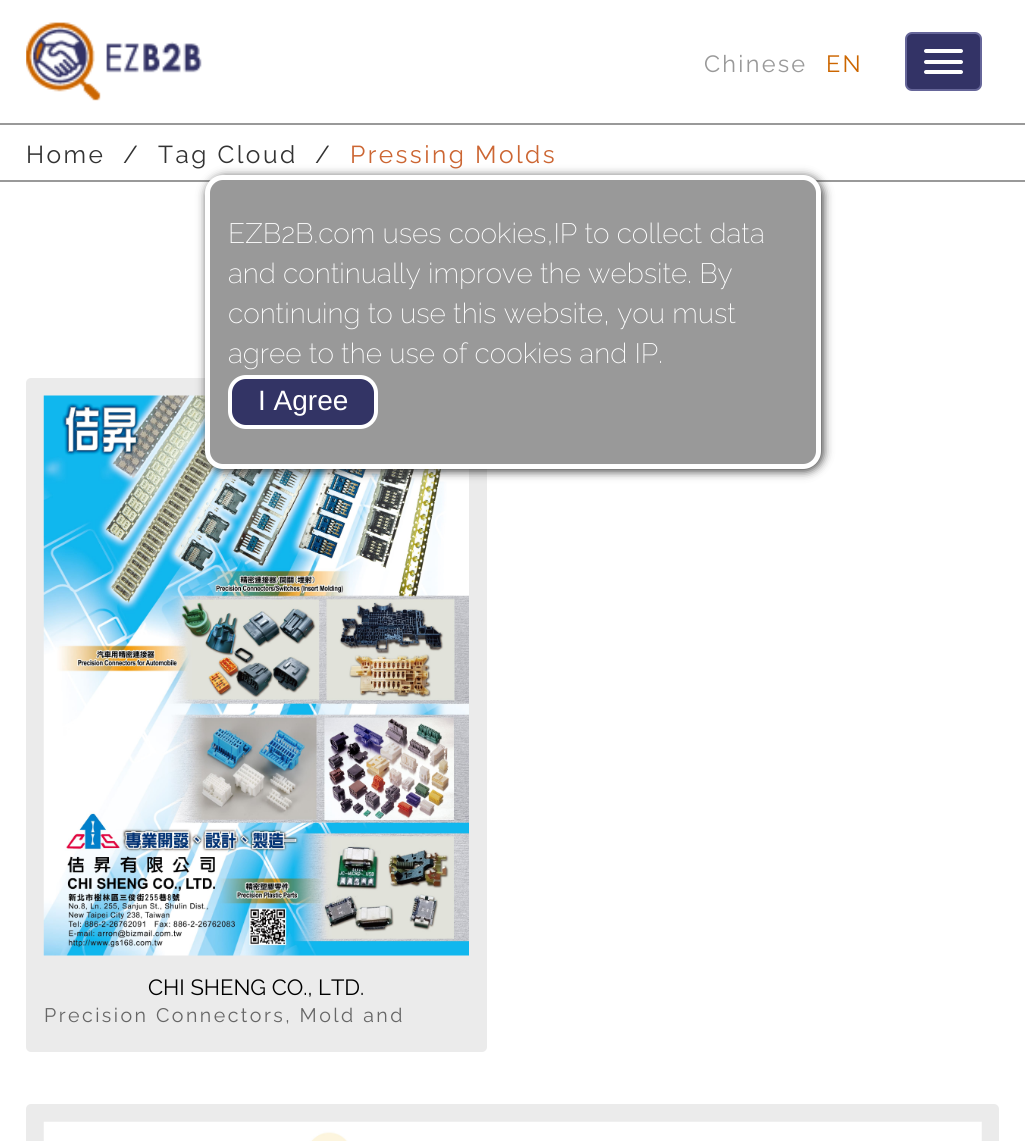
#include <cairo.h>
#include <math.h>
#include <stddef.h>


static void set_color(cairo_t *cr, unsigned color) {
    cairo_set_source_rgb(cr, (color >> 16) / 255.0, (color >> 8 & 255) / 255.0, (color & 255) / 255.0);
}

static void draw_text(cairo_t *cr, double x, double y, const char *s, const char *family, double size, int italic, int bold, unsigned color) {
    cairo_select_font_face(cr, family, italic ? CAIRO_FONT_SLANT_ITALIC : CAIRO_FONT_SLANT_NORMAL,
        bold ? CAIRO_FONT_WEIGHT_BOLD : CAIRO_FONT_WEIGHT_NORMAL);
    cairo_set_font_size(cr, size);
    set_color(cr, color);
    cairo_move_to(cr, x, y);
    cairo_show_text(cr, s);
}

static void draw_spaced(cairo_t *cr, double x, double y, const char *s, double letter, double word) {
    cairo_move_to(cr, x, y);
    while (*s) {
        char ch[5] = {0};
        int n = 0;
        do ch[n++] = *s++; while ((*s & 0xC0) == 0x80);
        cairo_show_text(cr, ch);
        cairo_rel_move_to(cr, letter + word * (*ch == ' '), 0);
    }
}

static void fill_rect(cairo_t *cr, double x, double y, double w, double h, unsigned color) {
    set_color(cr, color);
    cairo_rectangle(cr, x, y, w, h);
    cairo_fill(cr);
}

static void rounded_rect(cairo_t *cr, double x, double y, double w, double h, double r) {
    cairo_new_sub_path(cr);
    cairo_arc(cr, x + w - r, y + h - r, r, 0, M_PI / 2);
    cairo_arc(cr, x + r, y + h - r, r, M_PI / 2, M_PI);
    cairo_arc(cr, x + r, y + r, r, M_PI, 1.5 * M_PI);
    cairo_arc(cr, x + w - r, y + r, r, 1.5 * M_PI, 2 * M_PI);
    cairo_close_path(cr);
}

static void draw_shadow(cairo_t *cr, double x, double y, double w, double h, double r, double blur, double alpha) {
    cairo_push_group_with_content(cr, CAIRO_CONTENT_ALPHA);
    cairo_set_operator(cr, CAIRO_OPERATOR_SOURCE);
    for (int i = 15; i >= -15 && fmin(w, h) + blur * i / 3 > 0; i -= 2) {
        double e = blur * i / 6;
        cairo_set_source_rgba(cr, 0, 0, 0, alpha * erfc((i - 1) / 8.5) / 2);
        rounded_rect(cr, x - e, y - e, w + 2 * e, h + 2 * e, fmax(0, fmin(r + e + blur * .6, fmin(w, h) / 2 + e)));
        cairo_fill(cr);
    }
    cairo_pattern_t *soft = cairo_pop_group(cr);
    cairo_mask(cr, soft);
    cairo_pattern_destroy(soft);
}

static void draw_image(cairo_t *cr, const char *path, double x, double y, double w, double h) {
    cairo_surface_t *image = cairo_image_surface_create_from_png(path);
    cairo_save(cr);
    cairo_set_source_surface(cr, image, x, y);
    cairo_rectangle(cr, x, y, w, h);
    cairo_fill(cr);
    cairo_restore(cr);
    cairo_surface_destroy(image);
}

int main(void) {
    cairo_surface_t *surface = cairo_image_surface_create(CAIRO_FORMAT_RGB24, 1025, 1141);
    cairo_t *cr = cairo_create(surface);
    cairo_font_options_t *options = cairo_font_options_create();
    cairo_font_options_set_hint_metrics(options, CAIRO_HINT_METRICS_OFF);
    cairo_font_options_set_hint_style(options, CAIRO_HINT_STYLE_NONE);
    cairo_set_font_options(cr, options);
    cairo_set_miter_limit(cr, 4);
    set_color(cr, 0xFFFFFF);
    cairo_paint(cr);
    draw_image(cr, "assets/img1.png", 26, 22, 176, 79);
    cairo_select_font_face(cr, "Raleway", CAIRO_FONT_SLANT_NORMAL, CAIRO_FONT_WEIGHT_NORMAL);
    cairo_set_font_size(cr, 23.5);
    set_color(cr, 0x999999);
    draw_spaced(cr, 704, 72, "Chinese", 2.25, 0);
    set_color(cr, 0xCC6600);
    draw_spaced(cr, 826, 72, "EN", 2.25, 0);
    set_color(cr, 0x333366);
    rounded_rect(cr, 906, 33, 75, 57, 6);
    cairo_fill_preserve(cr);
    set_color(cr, 0x666699);
    cairo_stroke(cr);
    set_color(cr, 0xFFFFFF);
    rounded_rect(cr, 924, 49, 39, 4, 2);
    cairo_fill(cr);
    rounded_rect(cr, 924, 60, 39, 4, 2);
    cairo_fill(cr);
    rounded_rect(cr, 924, 70, 39, 4, 2);
    cairo_fill(cr);
    fill_rect(cr, 0, 123, 1025, 2, 0x999999);
    fill_rect(cr, 0, 180, 1025, 2, 0x999999);
    cairo_set_font_size(cr, 24.5);
    set_color(cr, 0x333333);
    draw_spaced(cr, 26, 163, "Home", 2.45, 0);
    draw_spaced(cr, 123, 163, "/", 2.45, 0);
    draw_spaced(cr, 158, 163, "Tag Cloud", 2.45, 0);
    draw_spaced(cr, 315, 163, "/", 2.45, 0);
    set_color(cr, 0xCC6633);
    draw_spaced(cr, 350, 163, "Pressing Molds", 2.45, 0);
    set_color(cr, 0xEBEBEB);
    rounded_rect(cr, 26, 378, 461, 674, 5);
    cairo_fill(cr);
    draw_image(cr, "assets/img2.png", 43, 395, 426, 561);
    draw_text(cr, 148, 995, "CHI SHENG CO., LTD.", "Raleway", 22, 0, 0, 0x000000);
    cairo_set_font_size(cr, 19.6);
    set_color(cr, 0x666666);
    draw_spaced(cr, 44, 1022, "Precision Connectors, Mold and", 2.45, 0);
    set_color(cr, 0xEBEBEB);
    rounded_rect(cr, 26, 1104, 973, 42, 5);
    cairo_fill(cr);
    draw_image(cr, "assets/img3.png", 43, 1121, 939, 20);
    set_color(cr, 0x333333);
    draw_shadow(cr, 207, 177, 616, 294, 18, 5, 1);
    set_color(cr, 0x999999);
    rounded_rect(cr, 207.5, 177.5, 611, 289, 15.5);
    cairo_fill_preserve(cr);
    set_color(cr, 0xFFFFFF);
    cairo_set_line_width(cr, 5);
    cairo_stroke(cr);
    draw_text(cr, 228, 243, "EZB2B.com uses cookies,IP to collect data", "Raleway ExtraLight", 28, 0, 0, 0xFFFFFF);
    draw_text(cr, 228, 283, "and continually improve the website. By", "Raleway ExtraLight", 28, 0, 0, 0xFFFFFF);
    draw_text(cr, 228, 323, "continuing to use this website, you must", "Raleway ExtraLight", 28, 0, 0, 0xFFFFFF);
    draw_text(cr, 228, 363, "agree to the use of cookies and IP.", "Raleway ExtraLight", 28, 0, 0, 0xFFFFFF);
    set_color(cr, 0x333465);
    rounded_rect(cr, 230, 377, 146, 50, 16);
    cairo_fill_preserve(cr);
    set_color(cr, 0xFFFFFF);
    cairo_set_line_width(cr, 4);
    cairo_stroke(cr);
    draw_text(cr, 258, 410, "I Agree", "Liberation Sans", 28, 0, 0, 0xFFFFFF);
    cairo_surface_write_to_png(surface, "output.png");
    cairo_font_options_destroy(options);
    cairo_destroy(cr);
    cairo_surface_destroy(surface);
    return 0;
}
